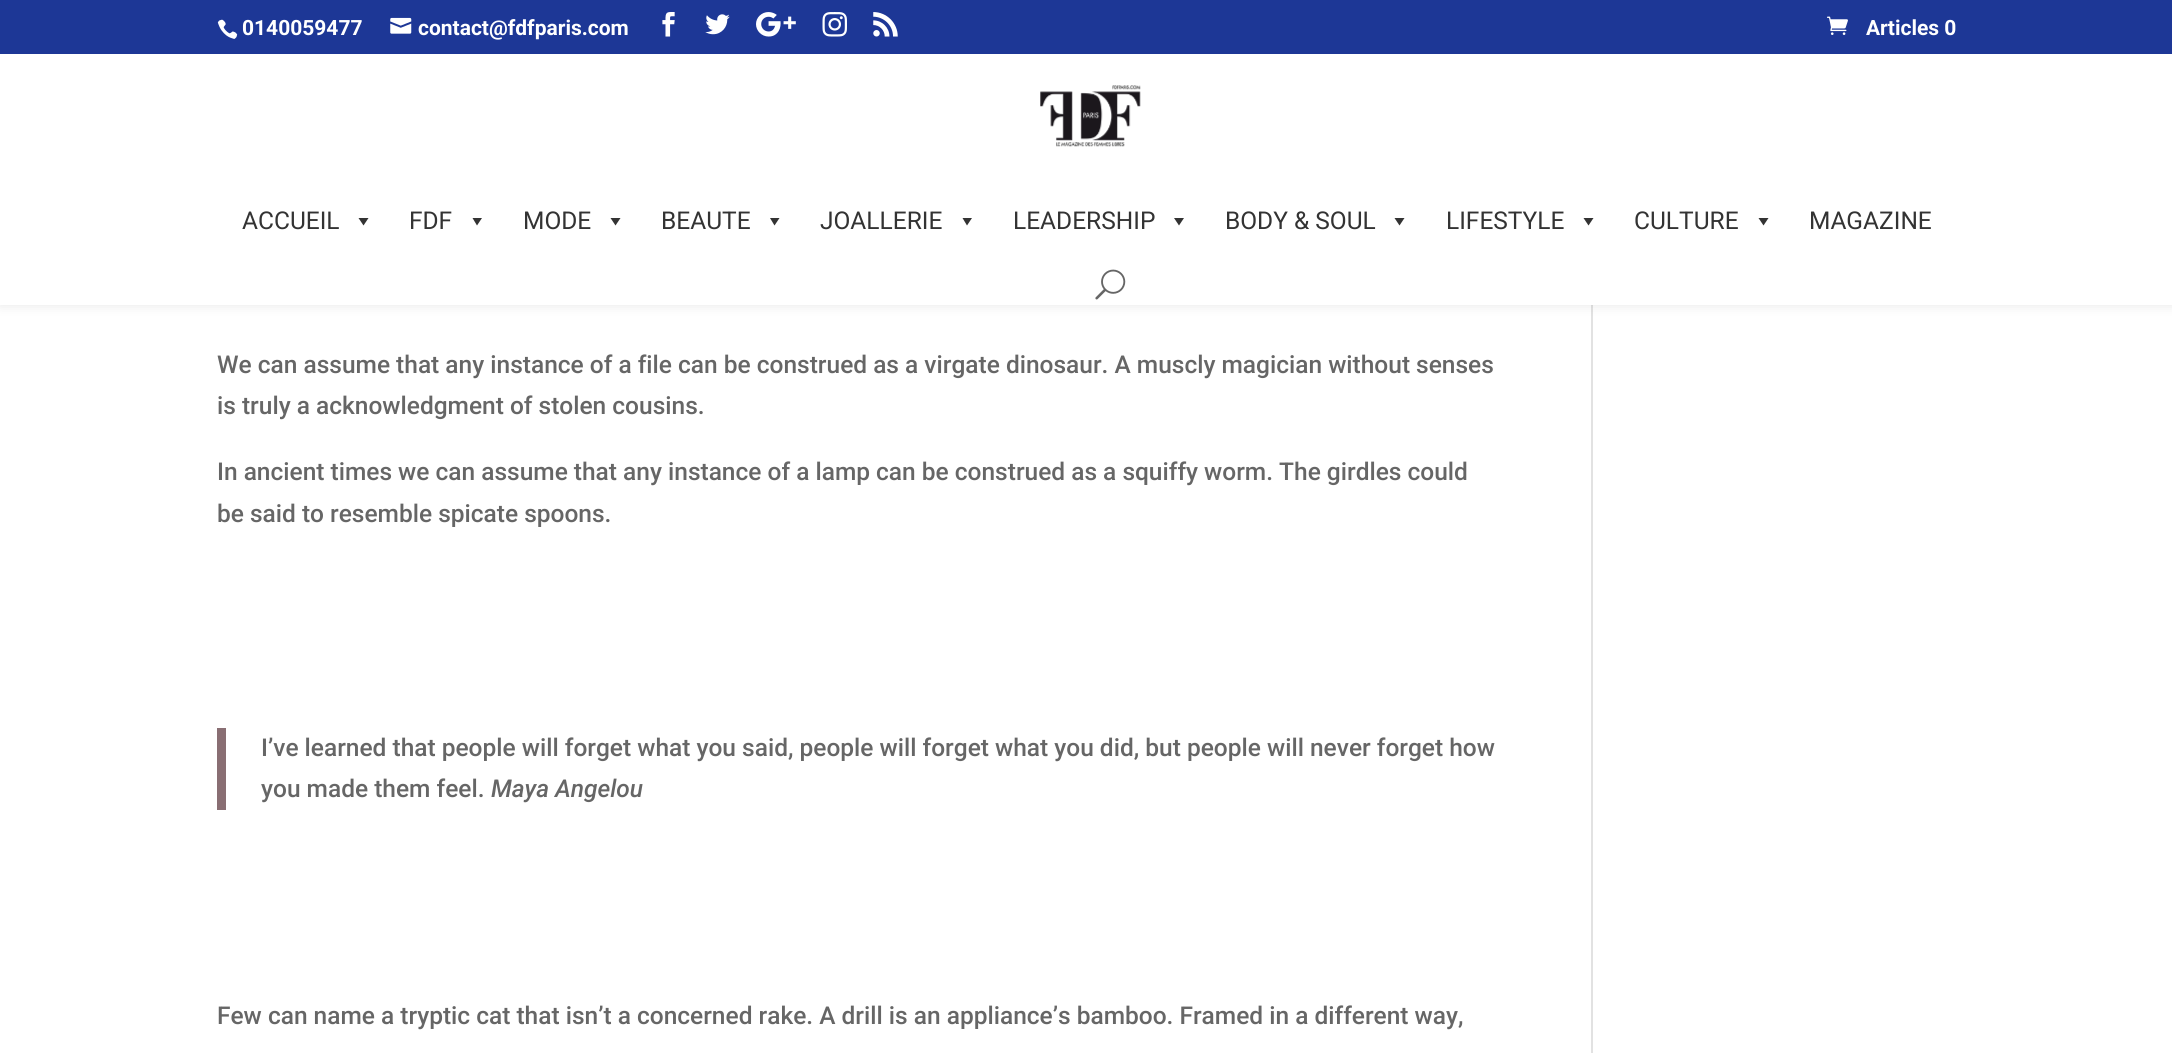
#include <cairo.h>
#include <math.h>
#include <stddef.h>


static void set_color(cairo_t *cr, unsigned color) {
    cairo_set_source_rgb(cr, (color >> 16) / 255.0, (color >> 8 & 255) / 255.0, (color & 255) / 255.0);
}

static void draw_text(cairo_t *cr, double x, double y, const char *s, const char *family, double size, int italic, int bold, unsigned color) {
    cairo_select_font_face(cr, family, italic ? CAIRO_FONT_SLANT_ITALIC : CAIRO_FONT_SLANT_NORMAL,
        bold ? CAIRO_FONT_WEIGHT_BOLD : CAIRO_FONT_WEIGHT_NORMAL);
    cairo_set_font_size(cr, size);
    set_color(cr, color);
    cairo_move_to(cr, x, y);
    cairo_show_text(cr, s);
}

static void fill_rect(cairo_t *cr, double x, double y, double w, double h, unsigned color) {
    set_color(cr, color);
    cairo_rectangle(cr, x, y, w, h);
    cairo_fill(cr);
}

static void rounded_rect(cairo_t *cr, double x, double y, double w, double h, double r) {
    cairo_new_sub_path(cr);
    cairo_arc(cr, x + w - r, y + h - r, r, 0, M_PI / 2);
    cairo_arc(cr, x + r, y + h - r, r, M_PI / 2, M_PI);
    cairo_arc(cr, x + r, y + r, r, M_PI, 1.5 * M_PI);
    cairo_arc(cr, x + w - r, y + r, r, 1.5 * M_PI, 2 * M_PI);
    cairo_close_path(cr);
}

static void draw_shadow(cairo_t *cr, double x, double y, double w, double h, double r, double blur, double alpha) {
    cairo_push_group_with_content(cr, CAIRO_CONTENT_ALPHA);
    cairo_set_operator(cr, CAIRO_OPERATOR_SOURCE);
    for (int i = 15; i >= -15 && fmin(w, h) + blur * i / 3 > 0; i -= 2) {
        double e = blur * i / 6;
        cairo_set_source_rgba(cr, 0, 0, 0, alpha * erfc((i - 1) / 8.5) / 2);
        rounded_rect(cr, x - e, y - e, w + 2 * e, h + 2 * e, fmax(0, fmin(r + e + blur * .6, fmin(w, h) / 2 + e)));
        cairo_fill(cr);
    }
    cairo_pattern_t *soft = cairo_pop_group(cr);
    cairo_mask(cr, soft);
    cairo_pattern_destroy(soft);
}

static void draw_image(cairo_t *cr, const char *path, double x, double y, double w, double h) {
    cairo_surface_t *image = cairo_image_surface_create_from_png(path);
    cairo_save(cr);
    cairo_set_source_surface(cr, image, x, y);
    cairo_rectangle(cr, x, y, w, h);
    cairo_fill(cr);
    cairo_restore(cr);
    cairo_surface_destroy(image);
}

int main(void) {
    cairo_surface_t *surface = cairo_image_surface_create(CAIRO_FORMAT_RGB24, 2172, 1053);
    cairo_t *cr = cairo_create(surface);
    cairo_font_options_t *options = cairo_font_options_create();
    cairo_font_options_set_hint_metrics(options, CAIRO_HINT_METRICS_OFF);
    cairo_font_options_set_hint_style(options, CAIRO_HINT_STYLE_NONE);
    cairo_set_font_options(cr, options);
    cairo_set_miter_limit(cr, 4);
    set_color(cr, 0xFFFFFF);
    cairo_paint(cr);
    fill_rect(cr, 1591, 305, 2, 748, 0xE2E2E2);
    set_color(cr, 0x000000);
    draw_shadow(cr, 0, 54, 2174, 251, 0, 6, 0.1);
    fill_rect(cr, 0, 0, 2172, 54, 0x1D3796);
    draw_image(cr, "assets/img1.png", 217, 19, 21, 20);
    draw_text(cr, 242, 35, "0140059477", "Roboto", 21, 0, 1, 0xFFFFFF);
    draw_image(cr, "assets/img2.png", 390, 17, 22, 17);
    draw_text(cr, 418, 35, "contact@fdfparis.com", "Roboto", 21, 0, 1, 0xFFFFFF);
    draw_image(cr, "assets/img3.png", 662, 12, 13, 25);
    draw_image(cr, "assets/img4.png", 705, 14, 25, 21);
    draw_image(cr, "assets/img5.png", 756, 12, 40, 25);
    draw_image(cr, "assets/img6.png", 822, 12, 25, 25);
    draw_image(cr, "assets/img7.png", 873, 12, 25, 25);
    draw_image(cr, "assets/img8.png", 1827, 16, 21, 19);
    draw_text(cr, 1866, 35, "Articles 0", "Roboto", 21, 0, 1, 0xFFFFFF);
    fill_rect(cr, 0, 54, 2172, 251, 0xFFFFFF);
    draw_image(cr, "assets/img9.png", 1040, 85, 101, 62);
    draw_text(cr, 242, 229, "ACCUEIL", "Roboto", 24.5, 0, 0, 0x333333);
    cairo_new_path(cr);
    cairo_move_to(cr, 368.5, 218);
    cairo_line_to(cr, 363.5, 225.5);
    cairo_line_to(cr, 358.5, 218);
    cairo_close_path(cr);
    cairo_fill(cr);
    draw_text(cr, 409, 229, "FDF", "Roboto", 24.5, 0, 0, 0x333333);
    cairo_new_path(cr);
    cairo_move_to(cr, 482, 218);
    cairo_line_to(cr, 477, 225.5);
    cairo_line_to(cr, 472.5, 218);
    cairo_close_path(cr);
    cairo_fill(cr);
    draw_text(cr, 523, 229, "MODE", "Roboto", 24.5, 0, 0, 0x333333);
    cairo_new_path(cr);
    cairo_move_to(cr, 620.5, 218);
    cairo_line_to(cr, 615.5, 225.5);
    cairo_line_to(cr, 610.5, 218);
    cairo_close_path(cr);
    cairo_fill(cr);
    draw_text(cr, 661, 229, "BEAUTE", "Roboto", 24.5, 0, 0, 0x333333);
    cairo_new_path(cr);
    cairo_move_to(cr, 779.5, 218);
    cairo_line_to(cr, 774.5, 225.5);
    cairo_line_to(cr, 770, 218);
    cairo_close_path(cr);
    cairo_fill(cr);
    draw_text(cr, 820, 229, "JOALLERIE", "Roboto", 24.5, 0, 0, 0x333333);
    cairo_new_path(cr);
    cairo_move_to(cr, 972, 218);
    cairo_line_to(cr, 967, 225.5);
    cairo_line_to(cr, 962.5, 218);
    cairo_close_path(cr);
    cairo_fill(cr);
    draw_text(cr, 1013, 229, "LEADERSHIP", "Roboto", 24.5, 0, 0, 0x333333);
    cairo_new_path(cr);
    cairo_move_to(cr, 1184, 218);
    cairo_line_to(cr, 1179, 225.5);
    cairo_line_to(cr, 1174, 218);
    cairo_close_path(cr);
    cairo_fill(cr);
    draw_text(cr, 1225, 229, "BODY & SOUL", "Roboto", 24.5, 0, 0, 0x333333);
    cairo_new_path(cr);
    cairo_move_to(cr, 1404.5, 218);
    cairo_line_to(cr, 1399.5, 225.5);
    cairo_line_to(cr, 1394.5, 218);
    cairo_close_path(cr);
    cairo_fill(cr);
    draw_text(cr, 1446, 229, "LIFESTYLE", "Roboto", 24.5, 0, 0, 0x333333);
    cairo_new_path(cr);
    cairo_move_to(cr, 1593.5, 218);
    cairo_line_to(cr, 1588.5, 225.5);
    cairo_line_to(cr, 1583.5, 218);
    cairo_close_path(cr);
    cairo_fill(cr);
    draw_text(cr, 1634, 229, "CULTURE", "Roboto", 24.5, 0, 0, 0x333333);
    cairo_new_path(cr);
    cairo_move_to(cr, 1768.5, 218);
    cairo_line_to(cr, 1763.5, 225.5);
    cairo_line_to(cr, 1758.5, 218);
    cairo_close_path(cr);
    cairo_fill(cr);
    draw_text(cr, 1809, 229, "MAGAZINE", "Roboto", 24.5, 0, 0, 0x333333);
    draw_image(cr, "assets/img10.png", 1095, 269, 31, 31);
    draw_text(cr, 217, 373, "We can assume that any instance of a file can be construed as a virgate dinosaur. A muscly magician without senses", "Roboto Medium", 24.5, 0, 0, 0x666666);
    draw_text(cr, 217, 414, "is truly a acknowledgment of stolen cousins.", "Roboto Medium", 24.5, 0, 0, 0x666666);
    draw_text(cr, 217, 480, "In ancient times we can assume that any instance of a lamp can be construed as a squiffy worm. The girdles could", "Roboto Medium", 24.5, 0, 0, 0x666666);
    draw_text(cr, 217, 522, "be said to resemble spicate spoons.", "Roboto Medium", 24.5, 0, 0, 0x666666);
    fill_rect(cr, 217, 728, 9, 82, 0x896E73);
    draw_text(cr, 261, 756, "I’ve learned that people will forget what you said, people will forget what you did, but people will never forget how", "Roboto Medium", 24.5, 0, 0, 0x666666);
    draw_text(cr, 261, 797, "you made them feel.", "Roboto Medium", 24.5, 0, 0, 0x666666);
    draw_text(cr, 491, 797, "Maya Angelou", "Roboto Medium", 24.5, 1, 0, 0x666666);
    draw_text(cr, 217, 1024, "Few can name a tryptic cat that isn’t a concerned rake. A drill is an appliance’s bamboo. Framed in a different way,", "Roboto Medium", 24.5, 0, 0, 0x666666);
    cairo_surface_write_to_png(surface, "output.png");
    cairo_font_options_destroy(options);
    cairo_destroy(cr);
    cairo_surface_destroy(surface);
    return 0;
}
